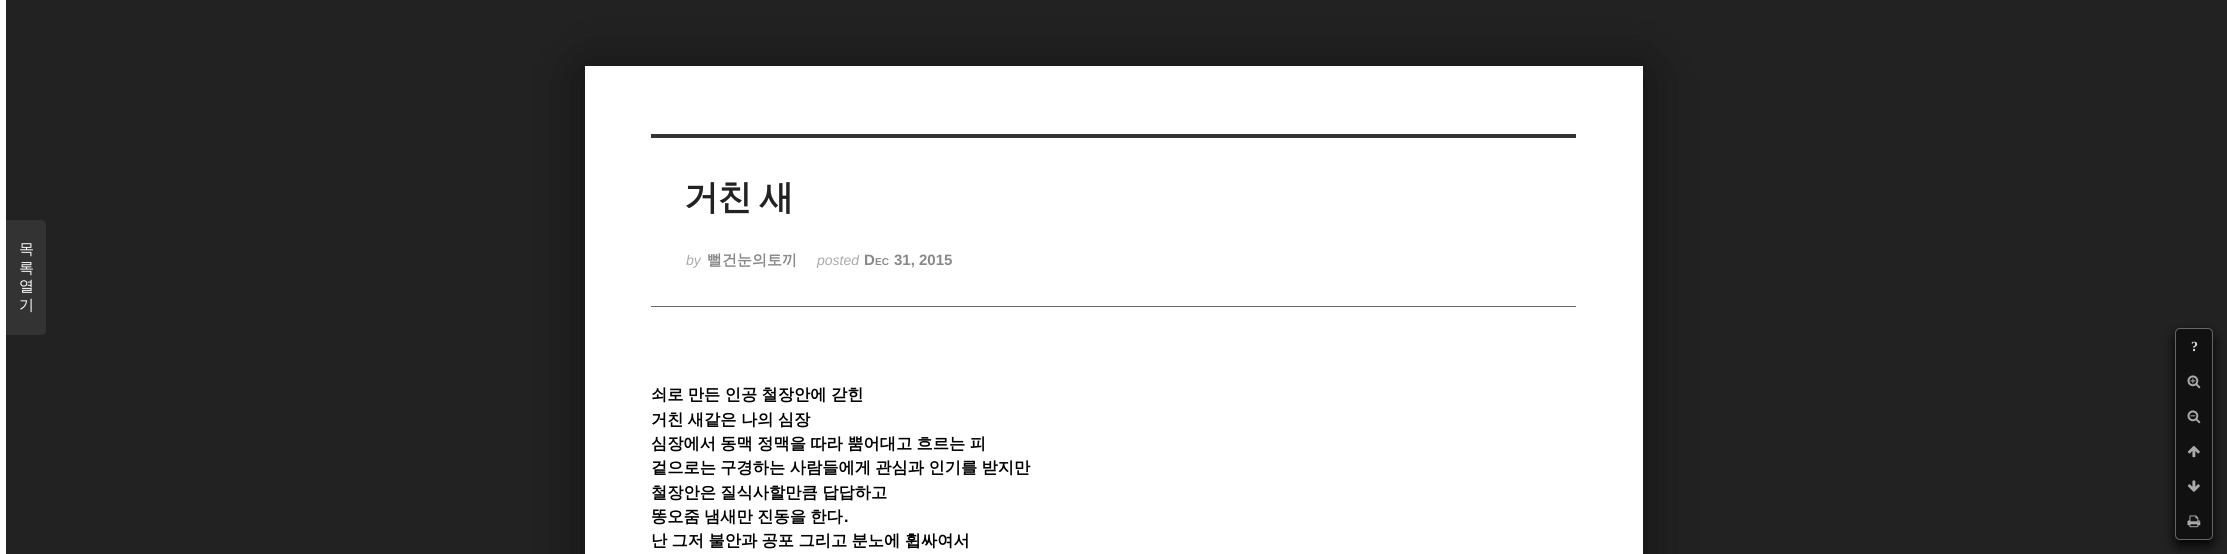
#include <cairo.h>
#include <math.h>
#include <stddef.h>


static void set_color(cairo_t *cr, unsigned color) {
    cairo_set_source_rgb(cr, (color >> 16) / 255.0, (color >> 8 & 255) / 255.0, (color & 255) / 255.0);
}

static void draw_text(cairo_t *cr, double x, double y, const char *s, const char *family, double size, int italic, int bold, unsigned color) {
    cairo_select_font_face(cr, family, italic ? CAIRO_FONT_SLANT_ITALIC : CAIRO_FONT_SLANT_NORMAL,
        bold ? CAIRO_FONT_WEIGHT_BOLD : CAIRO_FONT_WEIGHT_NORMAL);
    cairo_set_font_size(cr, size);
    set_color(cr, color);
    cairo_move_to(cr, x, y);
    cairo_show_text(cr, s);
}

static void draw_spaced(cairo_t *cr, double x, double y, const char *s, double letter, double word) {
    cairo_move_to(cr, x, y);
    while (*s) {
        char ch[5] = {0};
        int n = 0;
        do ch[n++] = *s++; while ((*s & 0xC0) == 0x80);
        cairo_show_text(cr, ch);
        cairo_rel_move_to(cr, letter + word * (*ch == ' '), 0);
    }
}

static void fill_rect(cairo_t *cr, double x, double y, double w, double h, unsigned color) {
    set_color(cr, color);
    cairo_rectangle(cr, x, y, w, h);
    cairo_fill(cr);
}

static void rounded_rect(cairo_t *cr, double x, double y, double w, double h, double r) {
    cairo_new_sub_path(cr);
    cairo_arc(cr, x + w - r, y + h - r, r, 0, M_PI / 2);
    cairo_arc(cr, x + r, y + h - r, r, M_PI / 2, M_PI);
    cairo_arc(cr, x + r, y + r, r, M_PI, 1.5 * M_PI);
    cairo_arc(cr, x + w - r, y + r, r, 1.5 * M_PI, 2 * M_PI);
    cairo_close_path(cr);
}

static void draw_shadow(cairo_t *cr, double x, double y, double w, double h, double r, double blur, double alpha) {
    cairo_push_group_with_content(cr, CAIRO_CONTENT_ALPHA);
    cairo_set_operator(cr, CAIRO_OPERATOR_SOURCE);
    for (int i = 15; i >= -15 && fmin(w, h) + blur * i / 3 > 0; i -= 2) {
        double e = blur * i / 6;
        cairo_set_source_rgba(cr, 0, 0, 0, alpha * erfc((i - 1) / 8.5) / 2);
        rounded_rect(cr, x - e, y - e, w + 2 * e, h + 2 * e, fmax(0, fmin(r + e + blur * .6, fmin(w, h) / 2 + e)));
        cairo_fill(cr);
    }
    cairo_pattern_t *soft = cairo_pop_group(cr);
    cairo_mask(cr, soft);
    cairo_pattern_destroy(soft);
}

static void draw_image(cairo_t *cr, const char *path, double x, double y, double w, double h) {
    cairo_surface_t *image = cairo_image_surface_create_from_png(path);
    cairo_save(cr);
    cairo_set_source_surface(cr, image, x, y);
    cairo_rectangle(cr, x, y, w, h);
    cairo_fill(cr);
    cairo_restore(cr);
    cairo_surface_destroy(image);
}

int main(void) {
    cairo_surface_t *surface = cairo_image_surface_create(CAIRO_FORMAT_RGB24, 2227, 554);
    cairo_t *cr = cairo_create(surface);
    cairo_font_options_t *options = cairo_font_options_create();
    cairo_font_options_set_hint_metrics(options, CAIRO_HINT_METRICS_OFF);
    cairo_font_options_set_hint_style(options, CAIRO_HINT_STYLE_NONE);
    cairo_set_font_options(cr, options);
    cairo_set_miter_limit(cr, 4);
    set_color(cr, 0x222222);
    cairo_paint(cr);
    set_color(cr, 0x000000);
    draw_shadow(cr, 585, 71, 1058, 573, 0, 30, 0.5);
    fill_rect(cr, 585, 66, 1058, 488, 0xFFFFFF);
    fill_rect(cr, 0, 0, 6, 554, 0xFFFFFF);
    set_color(cr, 0x333333);
    cairo_new_path(cr);
    cairo_move_to(cr, 6, 220);
    cairo_line_to(cr, 41, 220);
    cairo_curve_to(cr, 44, 220, 46, 222, 46, 225);
    cairo_line_to(cr, 46, 330);
    cairo_curve_to(cr, 46, 333, 44, 335, 41, 335);
    cairo_line_to(cr, 6, 335);
    cairo_close_path(cr);
    cairo_fill(cr);
    draw_text(cr, 19, 254, "목", "WenQuanYi Zen Hei Medium", 15, 0, 0, 0xFFFFFF);
    draw_text(cr, 19, 273, "록", "WenQuanYi Zen Hei Medium", 15, 0, 0, 0xFFFFFF);
    draw_text(cr, 19, 291, "열", "WenQuanYi Zen Hei Medium", 15, 0, 0, 0xFFFFFF);
    draw_text(cr, 19, 310, "기", "WenQuanYi Zen Hei Medium", 15, 0, 0, 0xFFFFFF);
    fill_rect(cr, 651, 134, 925, 4, 0x333333);
    fill_rect(cr, 651, 306, 925, 1, 0x666666);
    cairo_select_font_face(cr, "WenQuanYi Zen Hei", CAIRO_FONT_SLANT_NORMAL, CAIRO_FONT_WEIGHT_BOLD);
    cairo_set_font_size(cr, 34.5);
    set_color(cr, 0x222222);
    draw_spaced(cr, 684, 209, "거친 새", -1, -1);
    draw_text(cr, 686, 265, "by", "Liberation Sans", 14, 1, 0, 0xAAAAAA);
    draw_text(cr, 707, 265, "뻘건눈의토끼", "WenQuanYi Zen Hei", 15, 0, 1, 0x888888);
    draw_text(cr, 817, 265, "posted", "Liberation Sans", 14, 1, 0, 0xAAAAAA);
    draw_text(cr, 864, 265, "D", "Liberation Sans", 15, 0, 1, 0x888888);
    draw_text(cr, 875, 265, "EC", "Liberation Sans", 10, 0, 1, 0x888888);
    draw_text(cr, 894, 265, "31, 2015", "Liberation Sans", 15, 0, 1, 0x888888);
    set_color(cr, 0x000000);
    draw_shadow(cr, 2175, 334, 38, 212, 5, 6, 0.9);
    set_color(cr, 0x111111);
    rounded_rect(cr, 2175.5, 328.5, 37, 211, 4.5);
    cairo_fill_preserve(cr);
    set_color(cr, 0x666666);
    cairo_set_line_width(cr, 1);
    cairo_stroke(cr);
    cairo_select_font_face(cr, "Liberation Serif", CAIRO_FONT_SLANT_NORMAL, CAIRO_FONT_WEIGHT_BOLD);
    cairo_set_font_size(cr, 14);
    set_color(cr, 0xDDDDDD);
    draw_spaced(cr, 2191, 351, "?", -1, 0);
    draw_image(cr, "assets/img1.png", 2187, 375, 14, 14);
    draw_image(cr, "assets/img2.png", 2187, 410, 14, 14);
    draw_image(cr, "assets/img3.png", 2187, 446, 13, 12);
    draw_image(cr, "assets/img4.png", 2187, 480, 13, 12);
    draw_image(cr, "assets/img5.png", 2187, 515, 14, 13);
    cairo_select_font_face(cr, "WenQuanYi Zen Hei", CAIRO_FONT_SLANT_NORMAL, CAIRO_FONT_WEIGHT_BOLD);
    cairo_set_font_size(cr, 16.25);
    set_color(cr, 0x000000);
    draw_spaced(cr, 651, 400, "쇠로 만든 인공 철장안에 갇힌", 0, -0.5);
    draw_spaced(cr, 651, 425, "거친 새같은 나의 심장", 0, -0.5);
    draw_spaced(cr, 651, 449, "심장에서 동맥 정맥을 따라 뿜어대고 흐르는 피", 0, -0.5);
    draw_spaced(cr, 651, 473, "겉으로는 구경하는 사람들에게 관심과 인기를 받지만", 0, -0.5);
    draw_spaced(cr, 651, 498, "철장안은 질식사할만큼 답답하고", 0, -0.5);
    draw_spaced(cr, 651, 522, "똥오줌 냄새만 진동을 한다", 0, -0.5);
    draw_text(cr, 844, 522, ".", "Liberation Sans", 16.25, 0, 1, 0x000000);
    cairo_select_font_face(cr, "WenQuanYi Zen Hei", CAIRO_FONT_SLANT_NORMAL, CAIRO_FONT_WEIGHT_BOLD);
    draw_spaced(cr, 651, 546, "난 그저 불안과 공포 그리고 분노에 휩싸여서", 0, -0.5);
    cairo_surface_write_to_png(surface, "output.png");
    cairo_font_options_destroy(options);
    cairo_destroy(cr);
    cairo_surface_destroy(surface);
    return 0;
}
